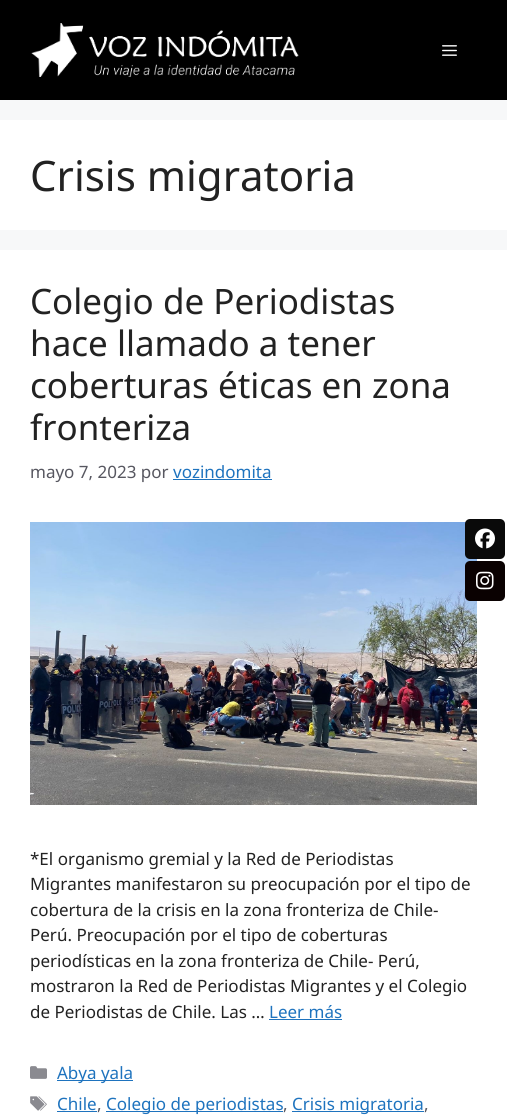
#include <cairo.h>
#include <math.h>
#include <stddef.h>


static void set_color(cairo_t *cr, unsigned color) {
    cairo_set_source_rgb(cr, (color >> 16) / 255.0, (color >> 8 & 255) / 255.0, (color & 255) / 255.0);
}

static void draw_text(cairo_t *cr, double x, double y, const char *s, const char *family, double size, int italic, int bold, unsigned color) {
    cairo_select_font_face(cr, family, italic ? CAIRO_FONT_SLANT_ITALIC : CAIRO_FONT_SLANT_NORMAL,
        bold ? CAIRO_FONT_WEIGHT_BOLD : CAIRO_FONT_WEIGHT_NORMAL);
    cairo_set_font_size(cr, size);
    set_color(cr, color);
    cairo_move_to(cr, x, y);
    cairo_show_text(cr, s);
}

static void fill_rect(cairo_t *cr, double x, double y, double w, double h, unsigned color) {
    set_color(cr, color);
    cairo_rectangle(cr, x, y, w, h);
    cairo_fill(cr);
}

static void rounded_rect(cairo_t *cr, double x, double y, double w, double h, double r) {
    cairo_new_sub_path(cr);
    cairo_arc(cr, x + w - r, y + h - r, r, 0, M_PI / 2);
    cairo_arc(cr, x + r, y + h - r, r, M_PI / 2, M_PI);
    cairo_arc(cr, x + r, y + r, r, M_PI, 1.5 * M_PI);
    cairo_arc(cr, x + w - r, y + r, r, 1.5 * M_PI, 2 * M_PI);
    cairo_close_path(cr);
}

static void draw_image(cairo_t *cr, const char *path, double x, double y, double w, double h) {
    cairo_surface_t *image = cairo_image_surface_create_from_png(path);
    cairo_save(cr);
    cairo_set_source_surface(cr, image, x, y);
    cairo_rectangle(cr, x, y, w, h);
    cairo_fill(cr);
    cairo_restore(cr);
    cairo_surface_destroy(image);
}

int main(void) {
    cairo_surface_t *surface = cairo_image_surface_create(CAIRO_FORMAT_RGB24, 507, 1115);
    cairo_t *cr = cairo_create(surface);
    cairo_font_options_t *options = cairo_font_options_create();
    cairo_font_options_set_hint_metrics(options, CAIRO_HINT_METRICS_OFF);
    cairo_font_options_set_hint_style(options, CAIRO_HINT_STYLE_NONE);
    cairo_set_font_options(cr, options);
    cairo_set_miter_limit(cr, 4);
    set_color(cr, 0xF7F8F9);
    cairo_paint(cr);
    fill_rect(cr, 0, 0, 507, 100, 0x000000);
    draw_image(cr, "assets/img1.png", 31, 23, 268, 54);
    draw_image(cr, "assets/img2.png", 442, 45, 15, 11);
    fill_rect(cr, 0, 120, 507, 110, 0xFFFFFF);
    draw_text(cr, 30, 191, "Crisis migratoria", "Noto Sans", 42, 0, 0, 0x222222);
    fill_rect(cr, 0, 250, 507, 865, 0xFFFFFF);
    draw_text(cr, 30, 314, "Colegio de Periodistas", "Noto Sans", 35, 0, 0, 0x222222);
    draw_text(cr, 30, 356, "hace llamado a tener", "Noto Sans", 35, 0, 0, 0x222222);
    draw_text(cr, 30, 398, "coberturas éticas en zona", "Noto Sans", 35, 0, 0, 0x222222);
    draw_text(cr, 30, 440, "fronteriza", "Noto Sans", 35, 0, 0, 0x222222);
    draw_text(cr, 30, 478, "mayo 7, 2023 por", "Noto Sans", 17, 0, 0, 0x575760);
    draw_text(cr, 173, 478, "vozindomita", "Noto Sans", 17, 0, 0, 0x1E73BE);
    fill_rect(cr, 173, 479, 99, 1, 0x1E73BE);
    draw_image(cr, "assets/img3.png", 30, 522, 447, 283);
    draw_text(cr, 30, 865, "*El organismo gremial y la Red de Periodistas", "Noto Sans", 17, 0, 0, 0x222222);
    draw_text(cr, 30, 890, "Migrantes manifestaron su preocupación por el tipo de", "Noto Sans", 17, 0, 0, 0x222222);
    draw_text(cr, 30, 916, "cobertura de la crisis en la zona fronteriza de Chile-", "Noto Sans", 17, 0, 0, 0x222222);
    draw_text(cr, 30, 941, "Perú. Preocupación por el tipo de coberturas", "Noto Sans", 17, 0, 0, 0x222222);
    draw_text(cr, 30, 967, "periodísticas en la zona fronteriza de Chile- Perú,", "Noto Sans", 17, 0, 0, 0x222222);
    draw_text(cr, 30, 992, "mostraron la Red de Periodistas Migrantes y el Colegio", "Noto Sans", 17, 0, 0, 0x222222);
    draw_text(cr, 30, 1018, "de Periodistas de Chile. Las …", "Noto Sans", 17, 0, 0, 0x222222);
    draw_text(cr, 269, 1018, "Leer más", "Noto Sans", 17, 0, 0, 0x1E73BE);
    fill_rect(cr, 269, 1019, 73, 1, 0x1E73BE);
    draw_image(cr, "assets/img4.png", 30, 1066, 17, 13);
    fill_rect(cr, 57, 1080, 76, 1, 0x1E73BE);
    draw_text(cr, 57, 1079, "Abya yala", "Noto Sans", 17, 0, 0, 0x1E73BE);
    draw_image(cr, "assets/img5.png", 30, 1096, 17, 15);
    draw_text(cr, 57, 1110, "Chile", "Noto Sans", 17, 0, 0, 0x1E73BE);
    fill_rect(cr, 57, 1111, 40, 1, 0x1E73BE);
    draw_text(cr, 97, 1110, ",", "Noto Sans", 17, 0, 0, 0x575760);
    fill_rect(cr, 106, 1111, 177, 1, 0x1E73BE);
    draw_text(cr, 106, 1110, "Colegio de periodistas", "Noto Sans", 17, 0, 0, 0x1E73BE);
    draw_text(cr, 283, 1110, ",", "Noto Sans", 17, 0, 0, 0x575760);
    fill_rect(cr, 292, 1111, 132, 1, 0x1E73BE);
    draw_text(cr, 292, 1110, "Crisis migratoria", "Noto Sans", 17, 0, 0, 0x1E73BE);
    draw_text(cr, 424, 1110, ",", "Noto Sans", 17, 0, 0, 0x575760);
    set_color(cr, 0x0A0A0A);
    rounded_rect(cr, 465, 519, 40, 40, 5);
    cairo_fill(cr);
    draw_image(cr, "assets/img6.png", 475, 528, 20, 21);
    set_color(cr, 0x0A0101);
    rounded_rect(cr, 465, 561, 40, 40, 5);
    cairo_fill(cr);
    draw_image(cr, "assets/img7.png", 476, 571, 18, 19);
    cairo_surface_write_to_png(surface, "output.png");
    cairo_font_options_destroy(options);
    cairo_destroy(cr);
    cairo_surface_destroy(surface);
    return 0;
}
